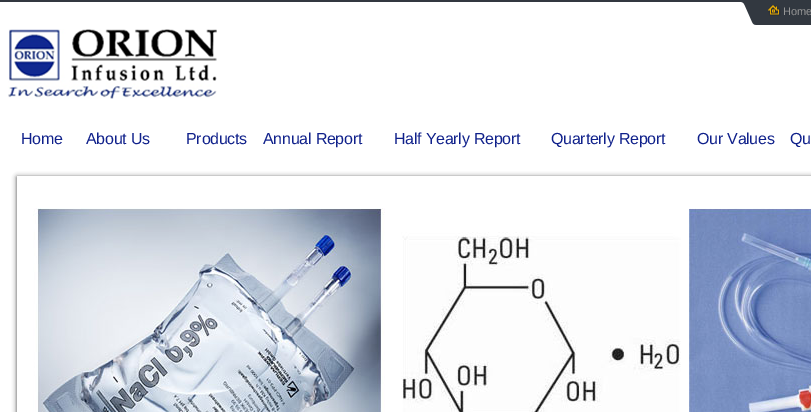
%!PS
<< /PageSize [811 412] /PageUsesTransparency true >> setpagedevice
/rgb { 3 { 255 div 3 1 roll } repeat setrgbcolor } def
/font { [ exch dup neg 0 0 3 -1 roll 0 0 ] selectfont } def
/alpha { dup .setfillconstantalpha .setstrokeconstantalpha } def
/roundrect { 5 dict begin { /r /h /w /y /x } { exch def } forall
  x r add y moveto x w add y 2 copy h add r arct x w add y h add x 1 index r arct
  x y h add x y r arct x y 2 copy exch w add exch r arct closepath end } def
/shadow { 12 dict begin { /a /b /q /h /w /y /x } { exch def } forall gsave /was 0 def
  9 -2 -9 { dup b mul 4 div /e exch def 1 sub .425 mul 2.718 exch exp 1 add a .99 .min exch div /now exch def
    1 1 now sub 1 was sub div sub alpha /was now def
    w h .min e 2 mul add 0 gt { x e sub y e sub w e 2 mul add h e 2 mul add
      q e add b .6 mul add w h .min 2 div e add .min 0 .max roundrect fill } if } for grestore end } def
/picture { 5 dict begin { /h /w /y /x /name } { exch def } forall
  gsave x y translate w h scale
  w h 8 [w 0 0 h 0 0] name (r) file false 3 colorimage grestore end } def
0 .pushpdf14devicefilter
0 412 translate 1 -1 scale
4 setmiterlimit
255 255 255 rgb
0 0 811 412 rectfill
50 56 64 rgb
0 0 811 2 rectfill
(img/1.rgb) 741 2 70 23 picture
(img/2.rgb) 768 5 13 11 picture
(img/3.rgb) 8 29 209 70 picture
gsave
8 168 moveto 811 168 lineto 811 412 lineto 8 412 lineto closepath 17 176 moveto 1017 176 lineto 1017 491 lineto 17 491 lineto closepath eoclip newpath
74 74 74 rgb
17 177 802 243 0 2.5 1 shadow
grestore
(img/4.rgb) 33 208 778 204 picture
/LiberationSans-Regular 11 font
150 150 150 rgb
783 15 moveto (Home) show
/LiberationSans-Regular 16 font
16 33 139 rgb
21 144 moveto -0.25 0 (Home) ashow
86 144 moveto -0.25 0 (About Us) ashow
186 144 moveto -0.25 0 (Products) ashow
263 144 moveto -0.25 0 (Annual Report) ashow
394 144 moveto -0.25 0 (Half Yearly Report) ashow
551 144 moveto -0.25 0 (Quarterly Report) ashow
697 144 moveto -0.25 0 (Our Values) ashow
790 144 moveto -0.25 0 (Qu) ashow
.poppdf14devicefilter showpage
